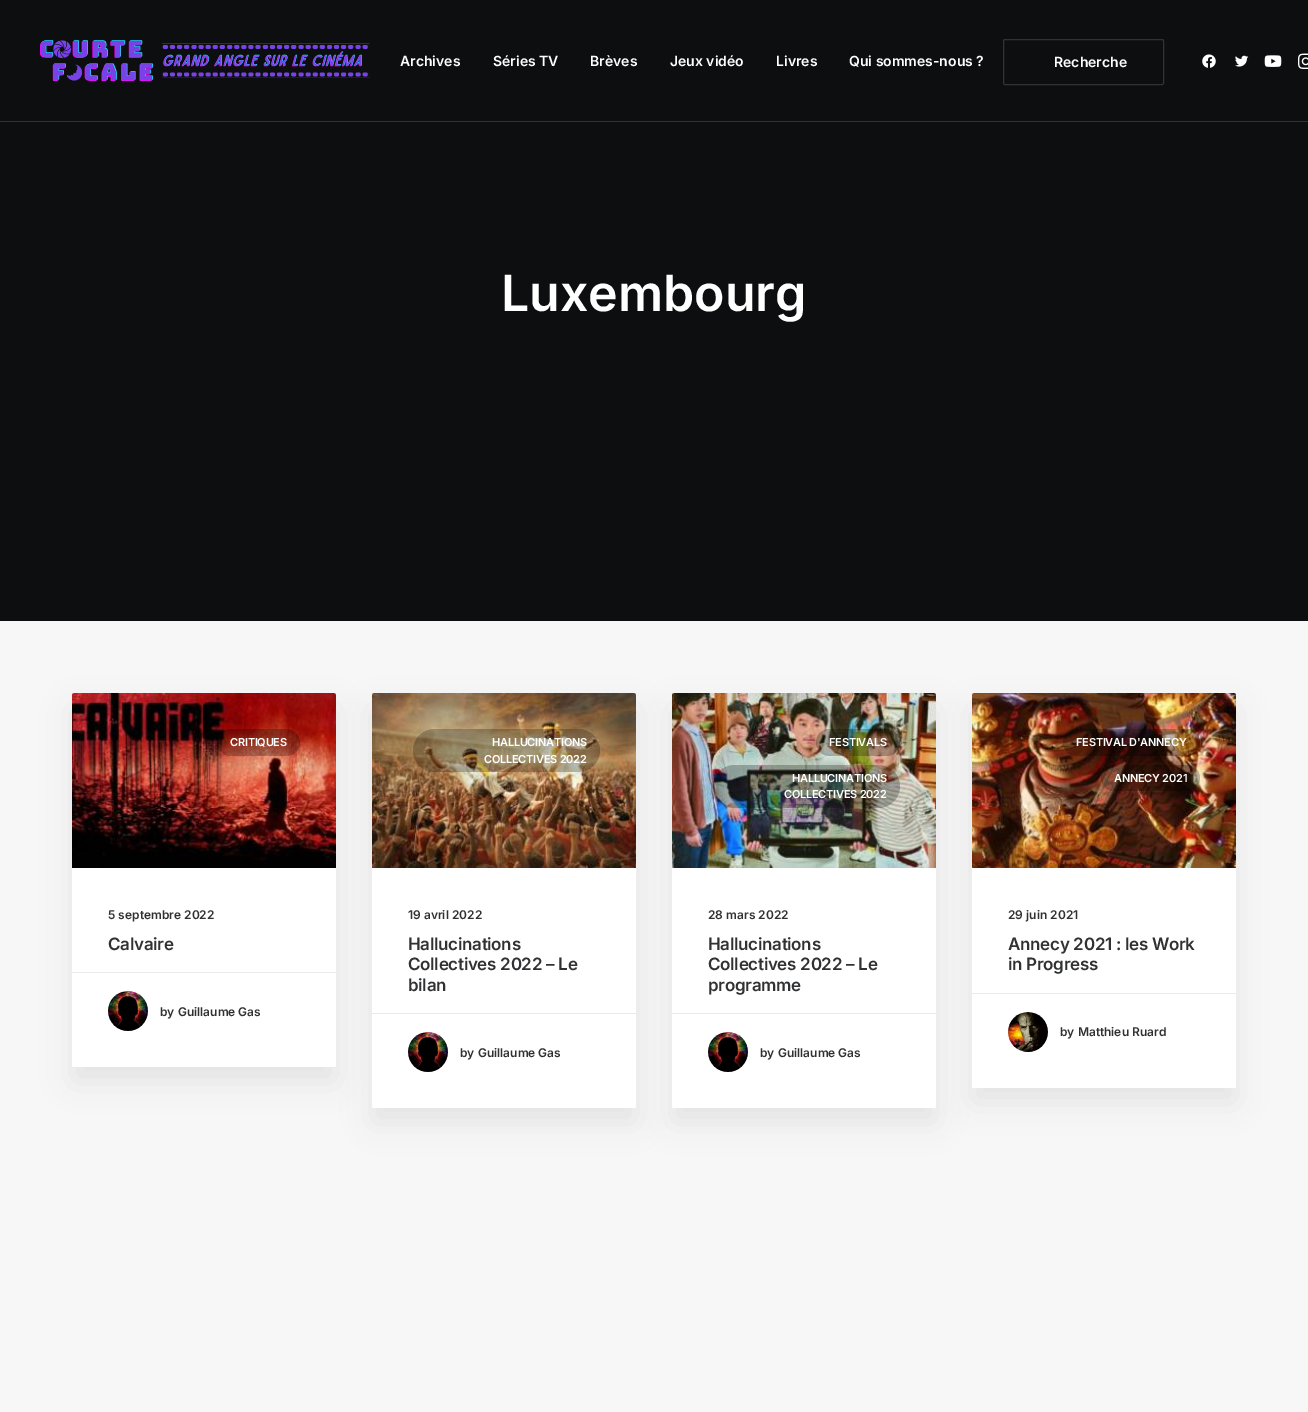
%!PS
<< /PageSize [1308 1412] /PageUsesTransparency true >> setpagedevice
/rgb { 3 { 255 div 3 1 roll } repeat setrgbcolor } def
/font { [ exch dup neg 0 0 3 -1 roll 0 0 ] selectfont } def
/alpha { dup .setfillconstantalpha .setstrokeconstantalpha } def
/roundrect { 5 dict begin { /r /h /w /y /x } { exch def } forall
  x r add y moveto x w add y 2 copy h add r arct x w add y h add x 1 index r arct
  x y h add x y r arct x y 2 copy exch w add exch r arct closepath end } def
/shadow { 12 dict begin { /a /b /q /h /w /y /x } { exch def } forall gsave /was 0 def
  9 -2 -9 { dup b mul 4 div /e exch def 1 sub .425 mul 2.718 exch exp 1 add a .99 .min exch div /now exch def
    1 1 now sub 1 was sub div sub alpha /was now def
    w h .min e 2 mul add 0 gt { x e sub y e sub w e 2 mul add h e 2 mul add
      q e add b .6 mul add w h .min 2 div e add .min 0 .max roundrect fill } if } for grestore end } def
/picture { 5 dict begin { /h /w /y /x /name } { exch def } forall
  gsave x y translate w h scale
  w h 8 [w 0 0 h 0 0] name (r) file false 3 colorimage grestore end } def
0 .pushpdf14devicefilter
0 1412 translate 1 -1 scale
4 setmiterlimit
13 14 16 rgb
0 0 1308 1412 rectfill
(img/1.rgb) 40 40 330 41 picture
49 50 52 rgb
1003.5 39.5 160 45 1.5 roundrect stroke
(img/2.rgb) 1202 54 14 14 picture
(img/3.rgb) 1235 55 14 12 picture
(img/4.rgb) 1264 55 18 12 picture
(img/5.rgb) 1298 53 10 16 picture
0 121 1308 1 rectfill
247 247 247 rgb
0 621 1308 791 rectfill
0 0 0 rgb
72 708 264 374 2 15 0.07 shadow
255 255 255 rgb
72 693 264 374 2 roundrect fill
(img/6.rgb) 72 693 264 175 picture
0.25 alpha
0 0 0 rgb
217 729 83 27 13.5 roundrect fill
1 alpha
234 234 234 rgb
72 972 264 1 rectfill
(img/7.rgb) 108 991 40 40 picture
0 0 0 rgb
372 708 264 415 2 15 0.07 shadow
255 255 255 rgb
372 693 264 415 2 roundrect fill
(img/8.rgb) 372 693 264 175 picture
0.25 alpha
0 0 0 rgb
413 729 187 43 21.5 roundrect fill
1 alpha
234 234 234 rgb
372 1013 264 1 rectfill
(img/7.rgb) 408 1032 40 40 picture
0 0 0 rgb
672 708 264 415 2 15 0.07 shadow
255 255 255 rgb
672 693 264 415 2 roundrect fill
(img/9.rgb) 672 693 264 175 picture
0.25 alpha
0 0 0 rgb
816 729 84 27 13.5 roundrect fill
713 765 187 43 21.5 roundrect fill
1 alpha
234 234 234 rgb
672 1013 264 1 rectfill
(img/7.rgb) 708 1032 40 40 picture
0 0 0 rgb
972 708 264 395 2 15 0.07 shadow
255 255 255 rgb
972 693 264 395 2 roundrect fill
(img/10.rgb) 972 693 264 175 picture
0.25 alpha
0 0 0 rgb
1063 729 137 27 13.5 roundrect fill
1101 765 99 26 13 roundrect fill
1 alpha
234 234 234 rgb
972 993 264 1 rectfill
(img/11.rgb) 1008 1012 40 40 picture
/Inter-SemiBold 14 font
255 255 255 rgb
[
  [(Archives) 400 66]
  [(Séries TV) 493 66]
  [(Brèves) 590 66]
  [(Jeux vidéo) 670 66]
  [(Livres) 776 66]
  [(Qui sommes-nous ?) 849 66]
  [(Recherche) 1054 67]
] { aload pop moveto show } forall
/Inter-SemiBold 50 font
501 311 moveto (Luxembourg) show
/Inter-SemiBold 11 font
230 746 moveto -0.25 0 (CRITIQUES) ashow
/Inter-SemiBold 12 font
48 49 51 rgb
108 919 moveto (5 septembre 2022) show
/Inter-SemiBold 17 font
108 950 moveto -0.3 0 (Calvaire) ashow
/Inter-SemiBold 12 font
160 1016 moveto (by Guillaume Gas) show
/Inter-SemiBold 11 font
255 255 255 rgb
492 746 moveto -0.25 0 (HALLUCINATIONS) ashow
484 763 moveto -0.25 0 (COLLECTIVES 2022) ashow
/Inter-SemiBold 12 font
48 49 51 rgb
408 919 moveto (19 avril 2022) show
/Inter-SemiBold 17 font
408 950 moveto -0.3 0 (Hallucinations) ashow
408 970 moveto -0.3 0 (Collectives 2022 – Le) ashow
408 991 moveto -0.3 0 (bilan) ashow
/Inter-SemiBold 12 font
460 1057 moveto (by Guillaume Gas) show
/Inter-SemiBold 11 font
255 255 255 rgb
829 746 moveto -0.25 0 (FESTIVALS) ashow
792 782 moveto -0.25 0 (HALLUCINATIONS) ashow
784 798 moveto -0.25 0 (COLLECTIVES 2022) ashow
/Inter-SemiBold 12 font
48 49 51 rgb
708 919 moveto (28 mars 2022) show
/Inter-SemiBold 17 font
708 950 moveto -0.3 0 (Hallucinations) ashow
708 970 moveto -0.3 0 (Collectives 2022 – Le) ashow
708 991 moveto -0.3 0 (programme) ashow
/Inter-SemiBold 12 font
760 1057 moveto (by Guillaume Gas) show
/Inter-SemiBold 11 font
255 255 255 rgb
1076 746 moveto -0.25 0 (FESTIVAL D'ANNECY) ashow
1114 782 moveto -0.25 0 (ANNECY 2021) ashow
/Inter-SemiBold 12 font
48 49 51 rgb
1008 919 moveto (29 juin 2021) show
/Inter-SemiBold 17 font
1008 950 moveto -0.3 0 (Annecy 2021 : les Work) ashow
1008 970 moveto -0.3 0 (in Progress) ashow
/Inter-SemiBold 12 font
1060 1036 moveto (by Matthieu Ruard) show
.poppdf14devicefilter showpage
